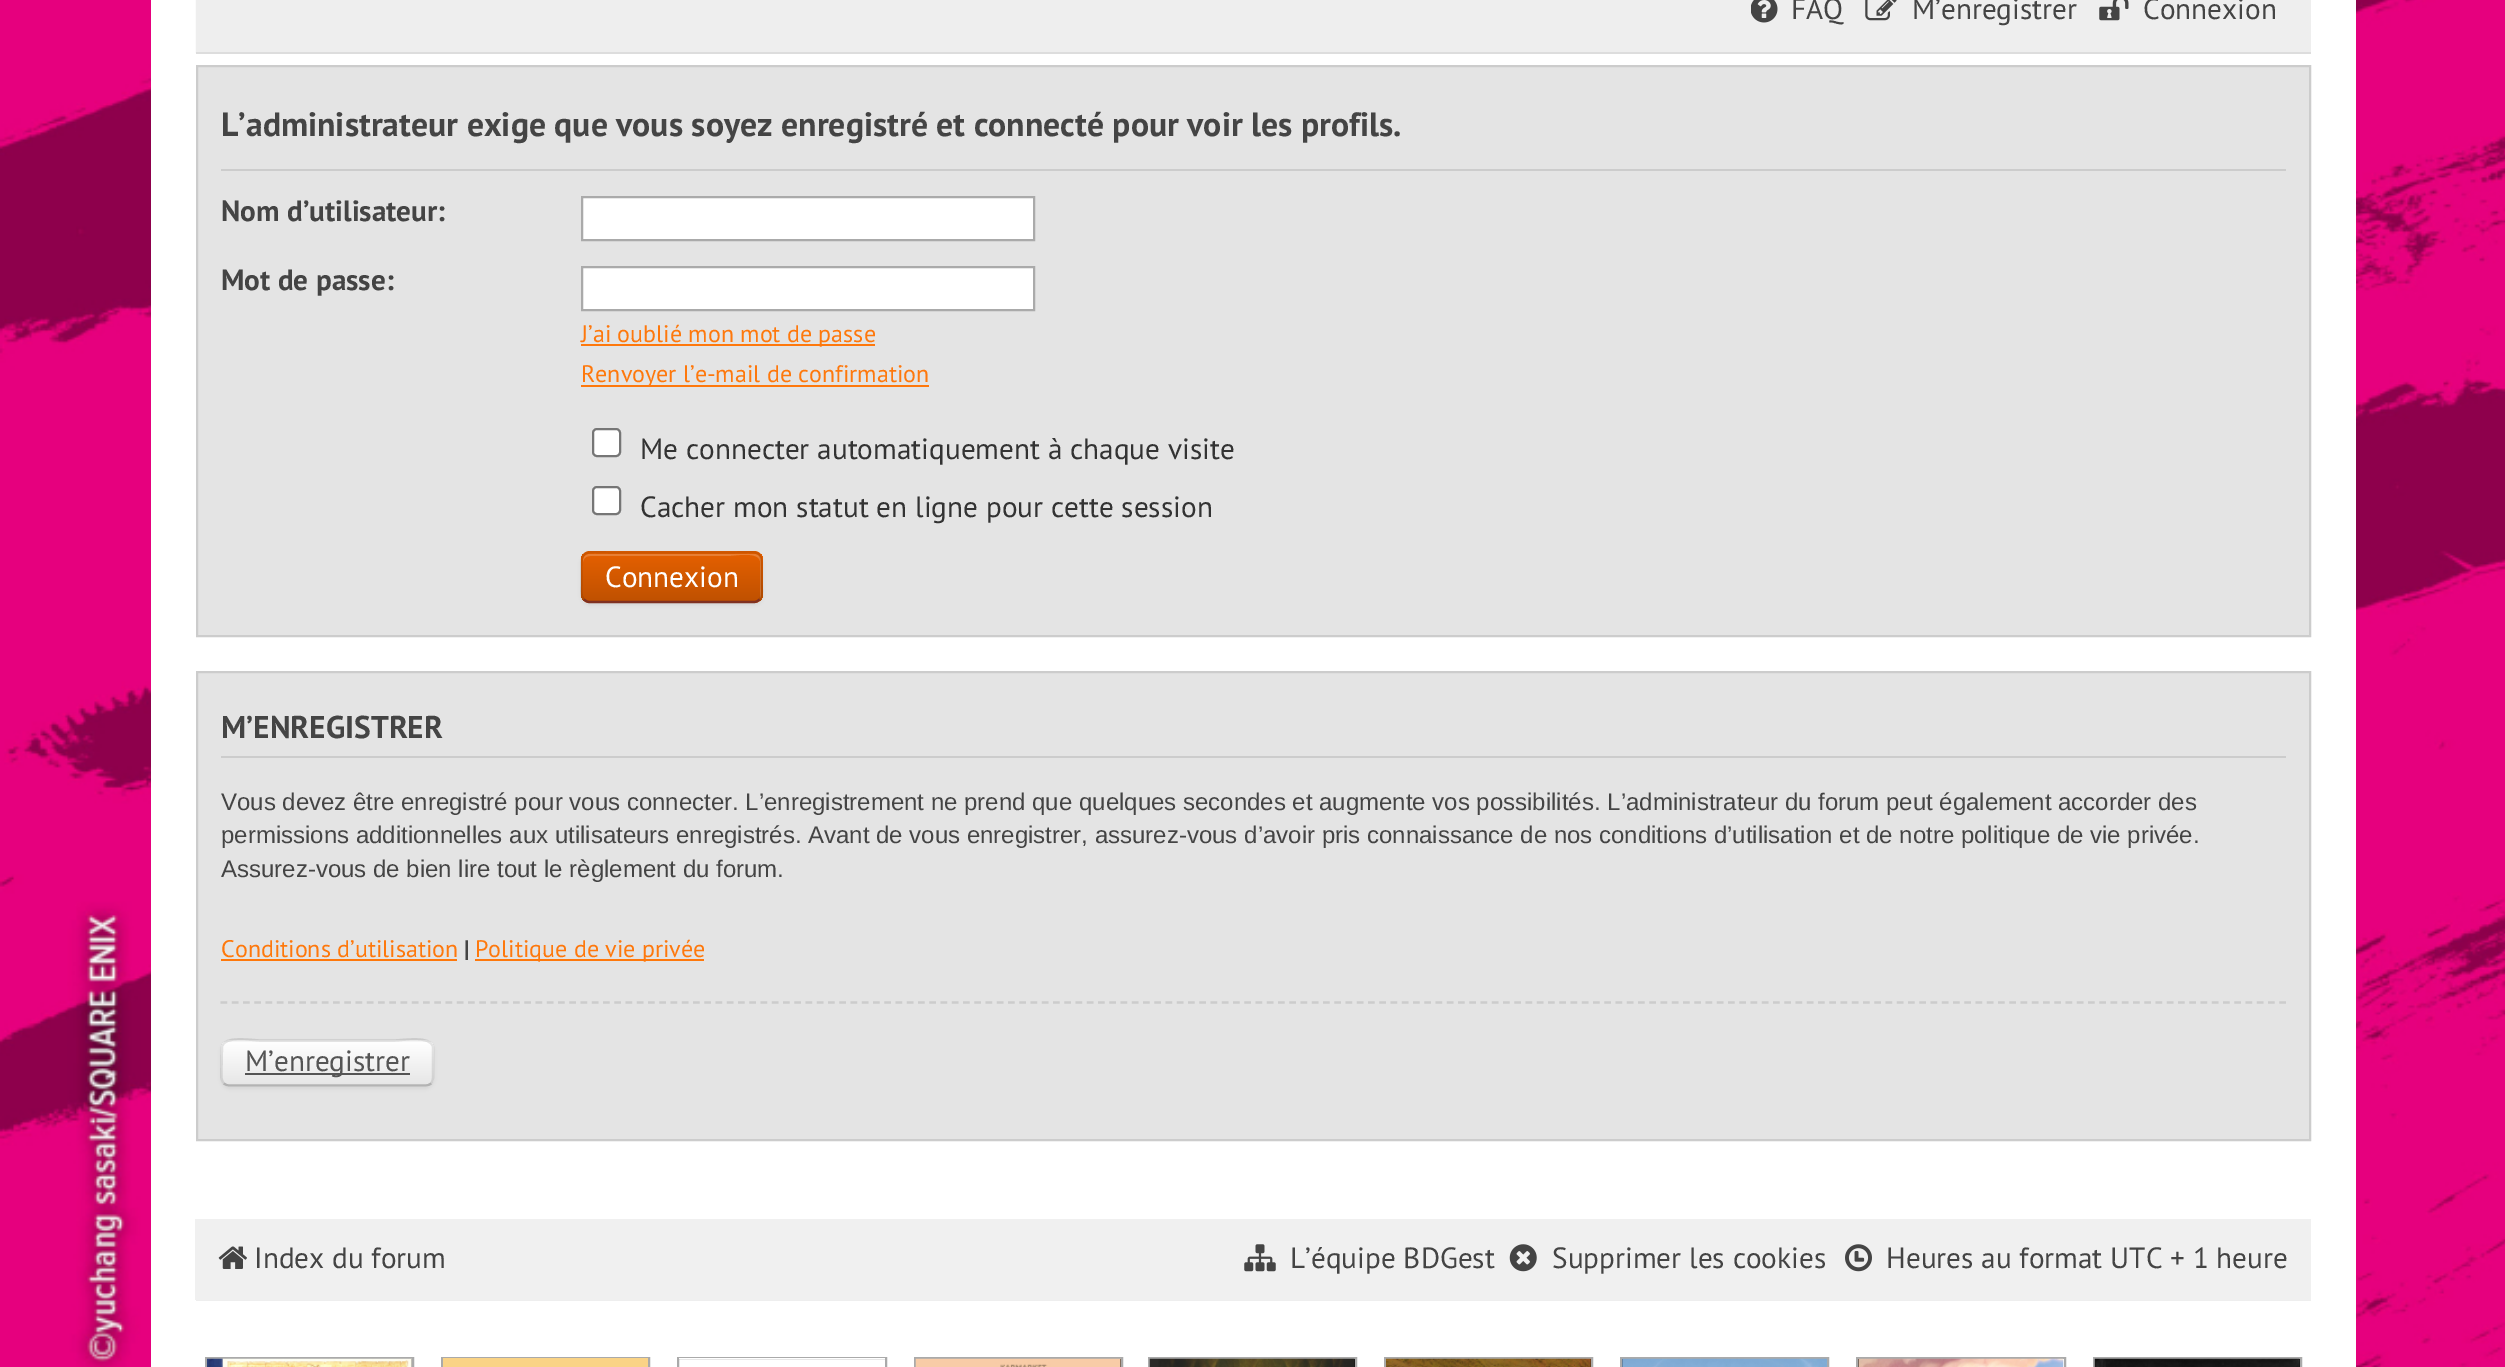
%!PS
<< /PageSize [2505 1367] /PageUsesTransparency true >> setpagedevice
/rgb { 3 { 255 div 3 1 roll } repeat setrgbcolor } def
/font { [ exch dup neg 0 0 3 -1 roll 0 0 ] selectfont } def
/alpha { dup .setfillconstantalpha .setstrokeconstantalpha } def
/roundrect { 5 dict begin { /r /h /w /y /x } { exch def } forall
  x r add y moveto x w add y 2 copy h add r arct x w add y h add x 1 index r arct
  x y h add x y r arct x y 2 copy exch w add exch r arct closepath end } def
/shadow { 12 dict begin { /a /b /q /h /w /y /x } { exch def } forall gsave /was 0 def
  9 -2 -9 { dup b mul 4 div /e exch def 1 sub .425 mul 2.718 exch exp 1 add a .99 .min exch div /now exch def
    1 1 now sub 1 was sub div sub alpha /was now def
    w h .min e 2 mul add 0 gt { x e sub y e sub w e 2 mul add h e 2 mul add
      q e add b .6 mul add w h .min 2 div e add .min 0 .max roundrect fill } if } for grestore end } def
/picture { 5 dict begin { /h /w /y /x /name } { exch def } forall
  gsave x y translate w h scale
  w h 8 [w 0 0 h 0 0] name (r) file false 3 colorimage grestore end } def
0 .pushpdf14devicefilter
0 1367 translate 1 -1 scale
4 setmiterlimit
255 255 255 rgb
0 0 2505 1367 rectfill
(img/1.rgb) 0 0 2505 1367 picture
[
  [151 0 2205 1367 255 255 255]
  [196 0 2115 52 238 238 238]
  [195 0 1 53 251 251 251]
  [196 52 2115 2 221 221 221]
] { aload pop rgb rectfill } forall
(img/2.rgb) 1751 0 27 23 picture
(img/3.rgb) 1865 0 32 21 picture
(img/4.rgb) 2099 0 30 21 picture
228 228 228 rgb
197 66 moveto 2310 66 lineto 2310 636 lineto 197 636 lineto closepath gsave fill grestore
204 204 204 rgb
2 setlinewidth
stroke
221 169 2065 2 rectfill
255 255 255 rgb
582 197 moveto 1034 197 lineto 1034 240 lineto 582 240 lineto closepath gsave fill grestore
170 170 170 rgb
stroke
255 255 255 rgb
582 267 moveto 1034 267 lineto 1034 310 lineto 582 310 lineto closepath gsave fill grestore
170 170 170 rgb
stroke
254 120 12 rgb
581 344 294 2 rectfill
581 385 348 2 rectfill
255 255 255 rgb
593 429 27 27 4 roundrect gsave fill grestore
118 118 118 rgb
stroke
255 255 255 rgb
593 487 27 27 4 roundrect gsave fill grestore
118 118 118 rgb
stroke
0 0 0 rgb
581 554 182 51 9 2 0.05 shadow
228 96 0 rgb
581 551 182 52 9 roundrect fill
gsave
581 551 182 52 9 roundrect clip newpath
gsave 581 554 moveto 763 554 lineto 763 601 lineto 581 601 lineto closepath clip newpath
<< /ShadingType 2 /ColorSpace /DeviceRGB /Coords [672 554 672 601] /Extend [true true] /Function << /FunctionType 2 /Domain [0 1] /C0 [0.894 0.376 0] /C1 [0.753 0.318 0] /N 1 >> >> shfill grestore
grestore
0.2 alpha
255 255 255 rgb
590 556 moveto 727 556 lineto 734 556 758 551 760 561 curveto 760 598 lineto 761 597 761 595 761 594 curveto 761 561 lineto 761 557 758 554 754 554 curveto 590 554 lineto 586 554 583 557 583 561 curveto 583 562 lineto 583 559 586 556 590 556 curveto closepath fill
1 alpha
128 49 33 rgb
2.2 setlinewidth
759.5 599.5 moveto 758 601 756 602 754 602 curveto 589.5 602 lineto 587.5 602 585.5 601 584 599.5 curveto stroke
0.1 alpha
0 0 0 rgb
584 599.5 moveto 580 595.5 581.5 587.5 581.5 583 curveto 581.5 546.5 577.5 552.5 617 552.5 curveto 726.5 552.5 lineto 765.5 552.5 761.5 546.5 761.5 583 curveto 761.5 587.5 763.5 595.5 759.5 599.5 curveto stroke
1 alpha
228 228 228 rgb
197 672 moveto 2310 672 lineto 2310 1140 lineto 197 1140 lineto closepath gsave fill grestore
204 204 204 rgb
2 setlinewidth
stroke
[
  [221 756 2065 2 204 204 204]
  [221 959 236 2 254 120 12]
  [475 959 229 2 254 120 12]
] { aload pop rgb rectfill } forall
204 204 204 rgb
2.2 setlinewidth
[6.75 4.5] 0 setdash
220.5 1002.5 moveto 2286 1002.5 lineto stroke
0 0 0 rgb
221 1042 213 47 9 2 0.05 shadow
245 245 245 rgb
221 1040 213 47 9 roundrect fill
gsave
221 1040 213 47 9 roundrect clip newpath
gsave 221 1042 moveto 434 1042 lineto 434 1085 lineto 221 1085 lineto closepath clip newpath
<< /ShadingType 2 /ColorSpace /DeviceRGB /Coords [327 1042 327 1085] /Extend [true true] /Function << /FunctionType 2 /Domain [0 1] /C0 [1 1 1] /C1 [0.902 0.902 0.902] /N 1 >> >> shfill grestore
grestore
179 179 179 rgb
[] 0 setdash
431 1083.5 moveto 429.5 1085 427.5 1085.5 425 1085.5 curveto 229.5 1085.5 lineto 227.5 1085.5 225.5 1085 224 1083.5 curveto stroke
0.1 alpha
0 0 0 rgb
224 1083.5 moveto 221 1080.5 221.5 1076.5 221.5 1073 curveto 222 1047 lineto 224 1035 251.5 1040.5 262 1040.5 curveto 392.5 1040.5 lineto 403.5 1040.5 430.5 1035 433 1047 curveto 433 1073 lineto 433 1076.5 433.5 1080.5 431 1083.5 curveto stroke
1 alpha
[
  [245 1073 165 2 85 85 85]
  [196 1300 2115 1 238 238 238]
  [195 1219 2116 81 240 240 240]
] { aload pop rgb rectfill } forall
(img/5.rgb) 218 1246 29 23 picture
(img/6.rgb) 1244 1244 32 28 picture
(img/7.rgb) 1509 1244 28 28 picture
(img/8.rgb) 1845 1244 27 28 picture
170 170 170 rgb
2 setlinewidth
206 1358 207 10 rectstroke
(img/9.rgb) 207 1358 205 9 picture
442 1358 207 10 rectstroke
250 211 134 rgb
443 1358 205 9 rectfill
170 170 170 rgb
678 1358 208 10 rectstroke
255 255 255 rgb
679 1358 206 1 rectfill
17 17 17 rgb
1120 1359 1 8 rectfill
170 170 170 rgb
915 1358 207 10 rectstroke
(img/10.rgb) 915 1358 206 9 picture
17 17 17 rgb
1354 1359 1 8 rectfill
170 170 170 rgb
1149 1358 207 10 rectstroke
(img/11.rgb) 1149 1358 206 9 picture
1385 1358 207 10 rectstroke
(img/12.rgb) 1386 1358 205 9 picture
1621 1358 207 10 rectstroke
(img/13.rgb) 1622 1358 205 9 picture
17 17 17 rgb
1858 1359 1 8 rectfill
170 170 170 rgb
1857 1358 208 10 rectstroke
(img/14.rgb) 1858 1358 206 9 picture
17 17 17 rgb
2299 1359 1 8 rectfill
170 170 170 rgb
2094 1358 207 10 rectstroke
(img/15.rgb) 2094 1358 206 9 picture
/PTSans-Regular 29.25 font
68 68 68 rgb
[
  [(FAQ) 1791 19]
  [(M’enregistrer) 1912 19]
  [(Connexion) 2143 19]
] { aload pop moveto show } forall
/PTSans-Bold 33.75 font
221 136 moveto (L’administrateur exige que vous soyez enregistré et connecté pour voir les profils.) show
/PTSans-Bold 29.25 font
221 221 moveto (Nom d’utilisateur:) show
221 290 moveto (Mot de passe:) show
/PTSans-Regular 24 font
254 120 12 rgb
581 342 moveto (J’ai oublié mon mot de passe) show
581 382 moveto (Renvoyer l’e-mail de confirmation) show
/PTSans-Regular 29.25 font
51 51 51 rgb
640 459 moveto (Me connecter automatiquement à chaque visite) show
640 517 moveto (Cacher mon statut en ligne pour cette session) show
255 255 255 rgb
605 587 moveto (Connexion) show
/PTSans-Bold 31.5 font
68 68 68 rgb
221 738 moveto (M’ENREGISTRER) show
/LiberationSans-Regular 24 font
[
  [(Vous devez être enregistré pour vous connecter. L’enregistrement ne prend que quelques secondes et augmente vos possibilités. L’administrateur du forum peut également accorder des) 221 810]
  [(permissions additionnelles aux utilisateurs enregistrés. Avant de vous enregistrer, assurez-vous d’avoir pris connaissance de nos conditions d’utilisation et de notre politique de vie privée.) 221 843]
  [(Assurez-vous de bien lire tout le règlement du forum.) 221 877]
] { aload pop moveto show } forall
/PTSans-Regular 24 font
254 120 12 rgb
221 957 moveto (Conditions d’utilisation) show
/PTSans-Bold 24 font
68 68 68 rgb
464 957 moveto (|) show
/PTSans-Regular 24 font
254 120 12 rgb
475 957 moveto (Politique de vie privée) show
/PTSans-Regular 29.25 font
85 85 85 rgb
245 1071 moveto (M’enregistrer) show
68 68 68 rgb
[
  [(Index du forum) 254 1268]
  [(L’équipe BDGest) 1290 1268]
  [(Supprimer les cookies) 1552 1268]
  [(Heures au format UTC + 1 heure) 1886 1268]
] { aload pop moveto show } forall
.poppdf14devicefilter showpage
